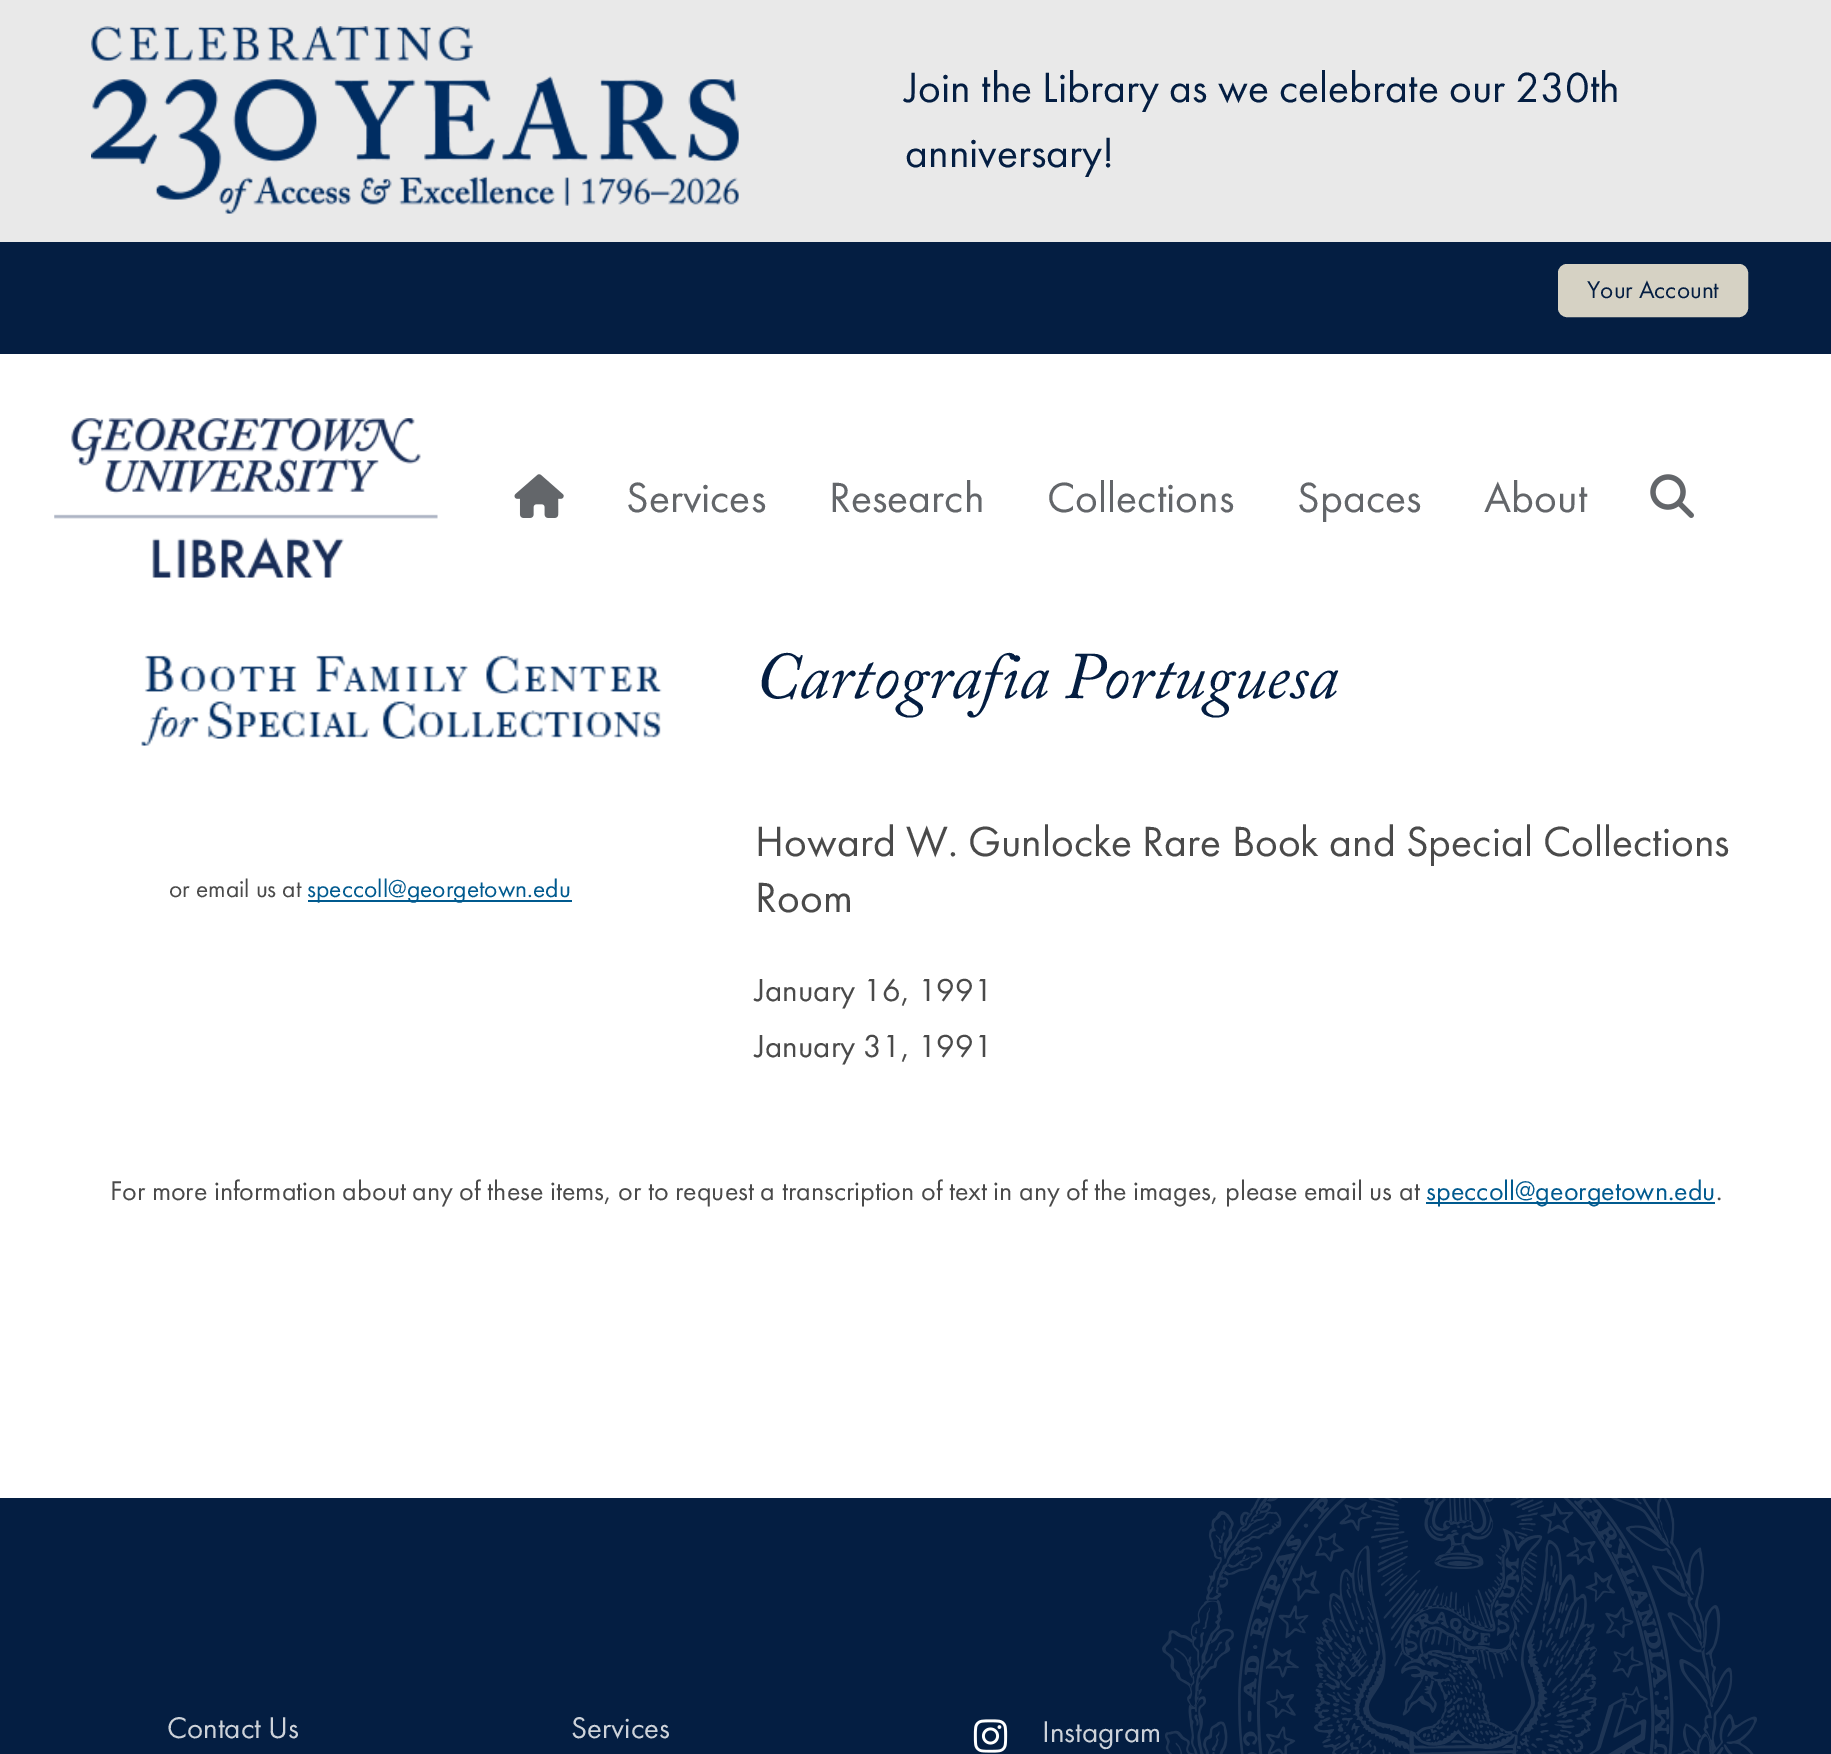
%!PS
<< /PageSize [1831 1754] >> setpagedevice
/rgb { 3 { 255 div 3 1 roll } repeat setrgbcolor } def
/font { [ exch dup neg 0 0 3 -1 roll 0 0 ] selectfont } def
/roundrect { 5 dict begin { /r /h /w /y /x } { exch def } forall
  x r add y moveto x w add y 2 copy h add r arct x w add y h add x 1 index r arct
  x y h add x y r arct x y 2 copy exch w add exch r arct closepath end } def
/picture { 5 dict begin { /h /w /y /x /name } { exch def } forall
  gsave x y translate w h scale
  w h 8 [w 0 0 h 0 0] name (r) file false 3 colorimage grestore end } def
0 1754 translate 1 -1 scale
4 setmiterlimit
255 255 255 rgb
0 0 1831 1754 rectfill
4 30 66 rgb
0 242 1831 112 rectfill
233 233 233 rgb
0 0 1831 242 rectfill
(img/1.rgb) 91 26 648 188 picture
214 210 196 rgb
1559 265 188 51 8 roundrect gsave fill grestore
2 setlinewidth
stroke
(img/2.rgb) 54 418 384 160 picture
(img/3.rgb) 514 474 50 44 picture
(img/4.rgb) 1650 474 44 44 picture
(img/5.rgb) 141 655 521 91 picture
[
  [308 900 264 2 0 90 143]
  [1426 1202 289 2 0 90 143]
  [0 1498 1831 256 4 30 66]
] { aload pop rgb rectfill } forall
(img/6.rgb) 1162 1498 595 256 picture
(img/7.rgb) 973 1719 35 34 picture
/FuturaPT-Regular 43.75 font
905 102 moveto (Join the Library as we celebrate our 230th) show
905 167 moveto (anniversary!) show
/FuturaPT-Regular 25.25 font
1587 298 moveto (Your Account) show
/FuturaPT-Regular 43.75 font
99 102 106 rgb
[
  [(Services) 626 512]
  [(Research) 829 512]
  [(Collections) 1047 512]
  [(Spaces) 1297 512]
  [(About) 1484 512]
] { aload pop moveto show } forall
/FuturaPT-Regular 25.5 font
74 74 74 rgb
169 897 moveto (or email us at) show
0 90 143 rgb
307 897 moveto (speccoll@georgetown.edu) show
/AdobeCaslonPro-Italic 66 font
4 30 66 rgb
755 698 moveto (Cartografia Portuguesa) show
/FuturaPT-Regular 43.7 font
74 74 74 rgb
755 856 moveto (Howard W. Gunlocke Rare Book and Special Collections) show
755 912 moveto (Room) show
/FuturaPT-Regular 33 font
755 1001 moveto (January 16, 1991) show
755 1057 moveto (January 31, 1991) show
/FuturaPT-Regular 28 font
110 1200 moveto (For more information about any of these items, or to request a transcription of text in any of the images, please email us at) show
0 90 143 rgb
1426 1200 moveto (speccoll@georgetown.edu) show
74 74 74 rgb
1716 1200 moveto (.) show
/FuturaPT-Regular 31 font
205 210 217 rgb
[
  [(Contact Us) 167 1738]
  [(Services) 571 1738]
  [(Instagram) 1042 1742]
] { aload pop moveto show } forall
showpage
